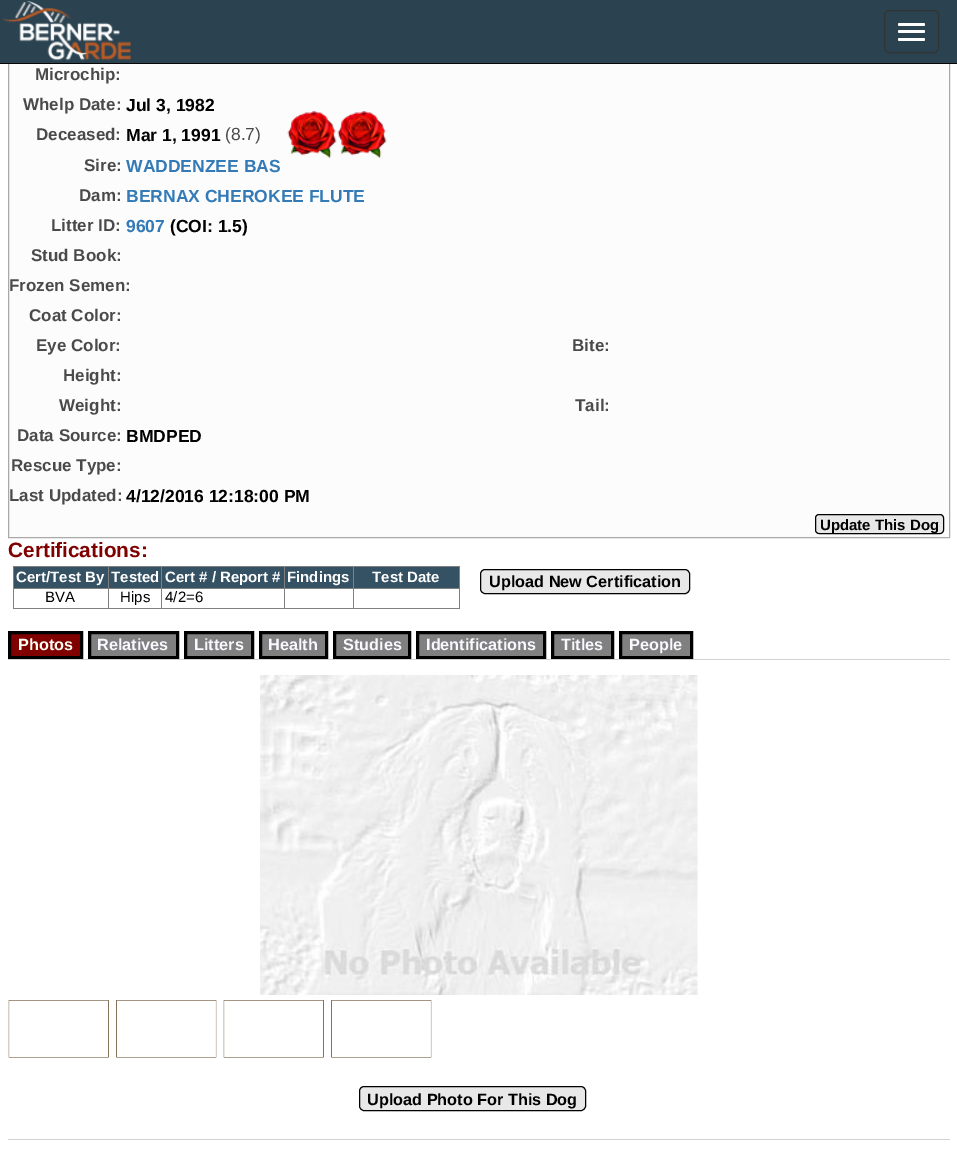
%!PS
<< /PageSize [957 1159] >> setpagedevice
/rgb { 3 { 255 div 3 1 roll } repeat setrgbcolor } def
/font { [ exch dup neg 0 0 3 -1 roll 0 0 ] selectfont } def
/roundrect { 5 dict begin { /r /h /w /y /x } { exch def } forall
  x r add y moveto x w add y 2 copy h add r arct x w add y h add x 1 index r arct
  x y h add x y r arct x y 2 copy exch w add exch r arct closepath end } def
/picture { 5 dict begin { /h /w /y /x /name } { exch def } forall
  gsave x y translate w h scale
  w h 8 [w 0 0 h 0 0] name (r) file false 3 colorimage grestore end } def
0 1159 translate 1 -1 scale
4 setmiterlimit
255 255 255 rgb
0 0 957 1159 rectfill
252 252 252 rgb
9 64 940 473 rectfill
169 169 169 rgb
8.5 -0.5 941 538 rectstroke
43 67 81 rgb
0 0 957 63 rectfill
8 8 8 rgb
0 63 957 1 rectfill
(img/1.rgb) 2 1 129 60 picture
51 51 51 rgb
884.5 10.5 54 42 4.5 roundrect stroke
255 255 255 rgb
898 23 27 3 1.5 roundrect fill
898 30 27 3 1.5 roundrect fill
898 38 27 3 1.5 roundrect fill
(img/2.rgb) 287 111 50 47 picture
(img/2.rgb) 337 111 50 47 picture
232 232 232 rgb
815.5 514.5 128 19 3.5 roundrect gsave fill grestore
0 0 0 rgb
stroke
[
  [13 566 447 1 128 128 128]
  [459 566 1 43 128 128 128]
  [13 608 447 1 128 128 128]
  [13 566 1 43 128 128 128]
  [14 567 445 21 53 82 100]
  [13 588 447 1 128 128 128]
  [108 566 1 43 128 128 128]
  [161 566 1 43 128 128 128]
  [284 566 1 43 128 128 128]
  [353 566 1 43 128 128 128]
] { aload pop rgb rectfill } forall
232 232 232 rgb
480.5 569.5 209 24 4.5 roundrect gsave fill grestore
0 0 0 rgb
stroke
128 0 0 rgb
9.5 632.5 moveto 81.5 632.5 lineto 81.5 657.5 lineto 9.5 657.5 lineto closepath gsave fill grestore
0 0 0 rgb
3 setlinewidth
stroke
128 128 128 rgb
89.5 632.5 moveto 177.5 632.5 lineto 177.5 657.5 lineto 89.5 657.5 lineto closepath gsave fill grestore
0 0 0 rgb
stroke
128 128 128 rgb
185.5 632.5 moveto 252.5 632.5 lineto 252.5 657.5 lineto 185.5 657.5 lineto closepath gsave fill grestore
0 0 0 rgb
stroke
128 128 128 rgb
260.5 632.5 moveto 326.5 632.5 lineto 326.5 657.5 lineto 260.5 657.5 lineto closepath gsave fill grestore
0 0 0 rgb
stroke
128 128 128 rgb
334.5 632.5 moveto 409.5 632.5 lineto 409.5 657.5 lineto 334.5 657.5 lineto closepath gsave fill grestore
0 0 0 rgb
stroke
128 128 128 rgb
417.5 632.5 moveto 544.5 632.5 lineto 544.5 657.5 lineto 417.5 657.5 lineto closepath gsave fill grestore
0 0 0 rgb
stroke
128 128 128 rgb
552.5 632.5 moveto 612.5 632.5 lineto 612.5 657.5 lineto 552.5 657.5 lineto closepath gsave fill grestore
0 0 0 rgb
stroke
128 128 128 rgb
620.5 632.5 moveto 691.5 632.5 lineto 691.5 657.5 lineto 620.5 657.5 lineto closepath gsave fill grestore
0 0 0 rgb
stroke
211 211 211 rgb
8 659 942 1 rectfill
(img/3.rgb) 260 675 438 320 picture
(img/4.rgb) 8 1000 101 58 picture
(img/5.rgb) 116 1000 101 58 picture
(img/4.rgb) 223 1000 101 58 picture
(img/5.rgb) 331 1000 101 58 picture
232 232 232 rgb
359.5 1086.5 226 24 4.5 roundrect gsave fill grestore
0 0 0 rgb
1 setlinewidth
stroke
211 211 211 rgb
8 1139 942 1 rectfill
/LiberationSans-Bold 17 font
74 74 74 rgb
35 80 moveto (Microchip:) show
23 110 moveto (Whelp Date:) show
/LiberationSans-Bold 17.5 font
0 0 0 rgb
126 111 moveto (Jul 3, 1982) show
/LiberationSans-Bold 17 font
74 74 74 rgb
36 140 moveto (Deceased:) show
/LiberationSans-Bold 17.5 font
0 0 0 rgb
126 141 moveto (Mar 1, 1991) show
/LiberationSans-Regular 17.5 font
74 74 74 rgb
225 140 moveto (\(8.7\)) show
/LiberationSans-Bold 17 font
84 171 moveto (Sire:) show
/LiberationSans-Bold 17.5 font
51 122 183 rgb
126 172 moveto (WADDENZEE BAS) show
/LiberationSans-Bold 17 font
74 74 74 rgb
79 201 moveto (Dam:) show
/LiberationSans-Bold 17.5 font
51 122 183 rgb
126 202 moveto (BERNAX CHEROKEE FLUTE) show
/LiberationSans-Bold 17 font
74 74 74 rgb
51 231 moveto (Litter ID:) show
/LiberationSans-Bold 17.5 font
51 122 183 rgb
126 232 moveto (9607) show
0 0 0 rgb
170 232 moveto (\(COI: 1.5\)) show
/LiberationSans-Bold 17 font
74 74 74 rgb
[
  [(Stud Book:) 31 261]
  [(Frozen Semen:) 9 291]
  [(Coat Color:) 29 321]
  [(Eye Color:) 36 351]
  [(Bite:) 572 351]
  [(Height:) 63 381]
  [(Weight:) 59 411]
  [(Tail:) 575 411]
  [(Data Source:) 17 441]
] { aload pop moveto show } forall
/LiberationSans-Bold 17.5 font
0 0 0 rgb
126 442 moveto (BMDPED) show
/LiberationSans-Bold 17 font
74 74 74 rgb
11 471 moveto (Rescue Type:) show
9 501 moveto (Last Updated:) show
/LiberationSans-Bold 17.5 font
0 0 0 rgb
126 502 moveto (4/12/2016 12:18:00 PM) show
gsave
816 515 127 18 2.5 roundrect clip newpath
/LiberationSans-Bold 15 font
820 530 moveto (Update This Dog) show
grestore
/LiberationSans-Bold 20.75 font
128 0 0 rgb
8 557 moveto (Certifications:) show
/LiberationSans-Bold 15 font
255 255 255 rgb
[
  [(Cert/Test By) 16 582]
  [(Tested) 111 582]
  [(Cert # / Report #) 165 582]
  [(Findings) 287 582]
  [(Test Date) 372 582]
] { aload pop moveto show } forall
/LiberationSans-Regular 15 font
0 0 0 rgb
[
  [(BVA) 45 602]
  [(Hips) 120 602]
  [(4/2=6) 165 602]
] { aload pop moveto show } forall
/LiberationSans-Bold 16.25 font
489 587 moveto (Upload New Certification) show
254 254 242 rgb
18 650 moveto (Photos) show
248 248 255 rgb
[
  [(Relatives) 97 650]
  [(Litters) 194 650]
  [(Health) 268 650]
  [(Studies) 343 650]
  [(Identifications) 426 650]
  [(Titles) 561 650]
  [(People) 629 650]
] { aload pop moveto show } forall
0 0 0 rgb
367 1105 moveto (Upload Photo For This Dog) show
showpage
